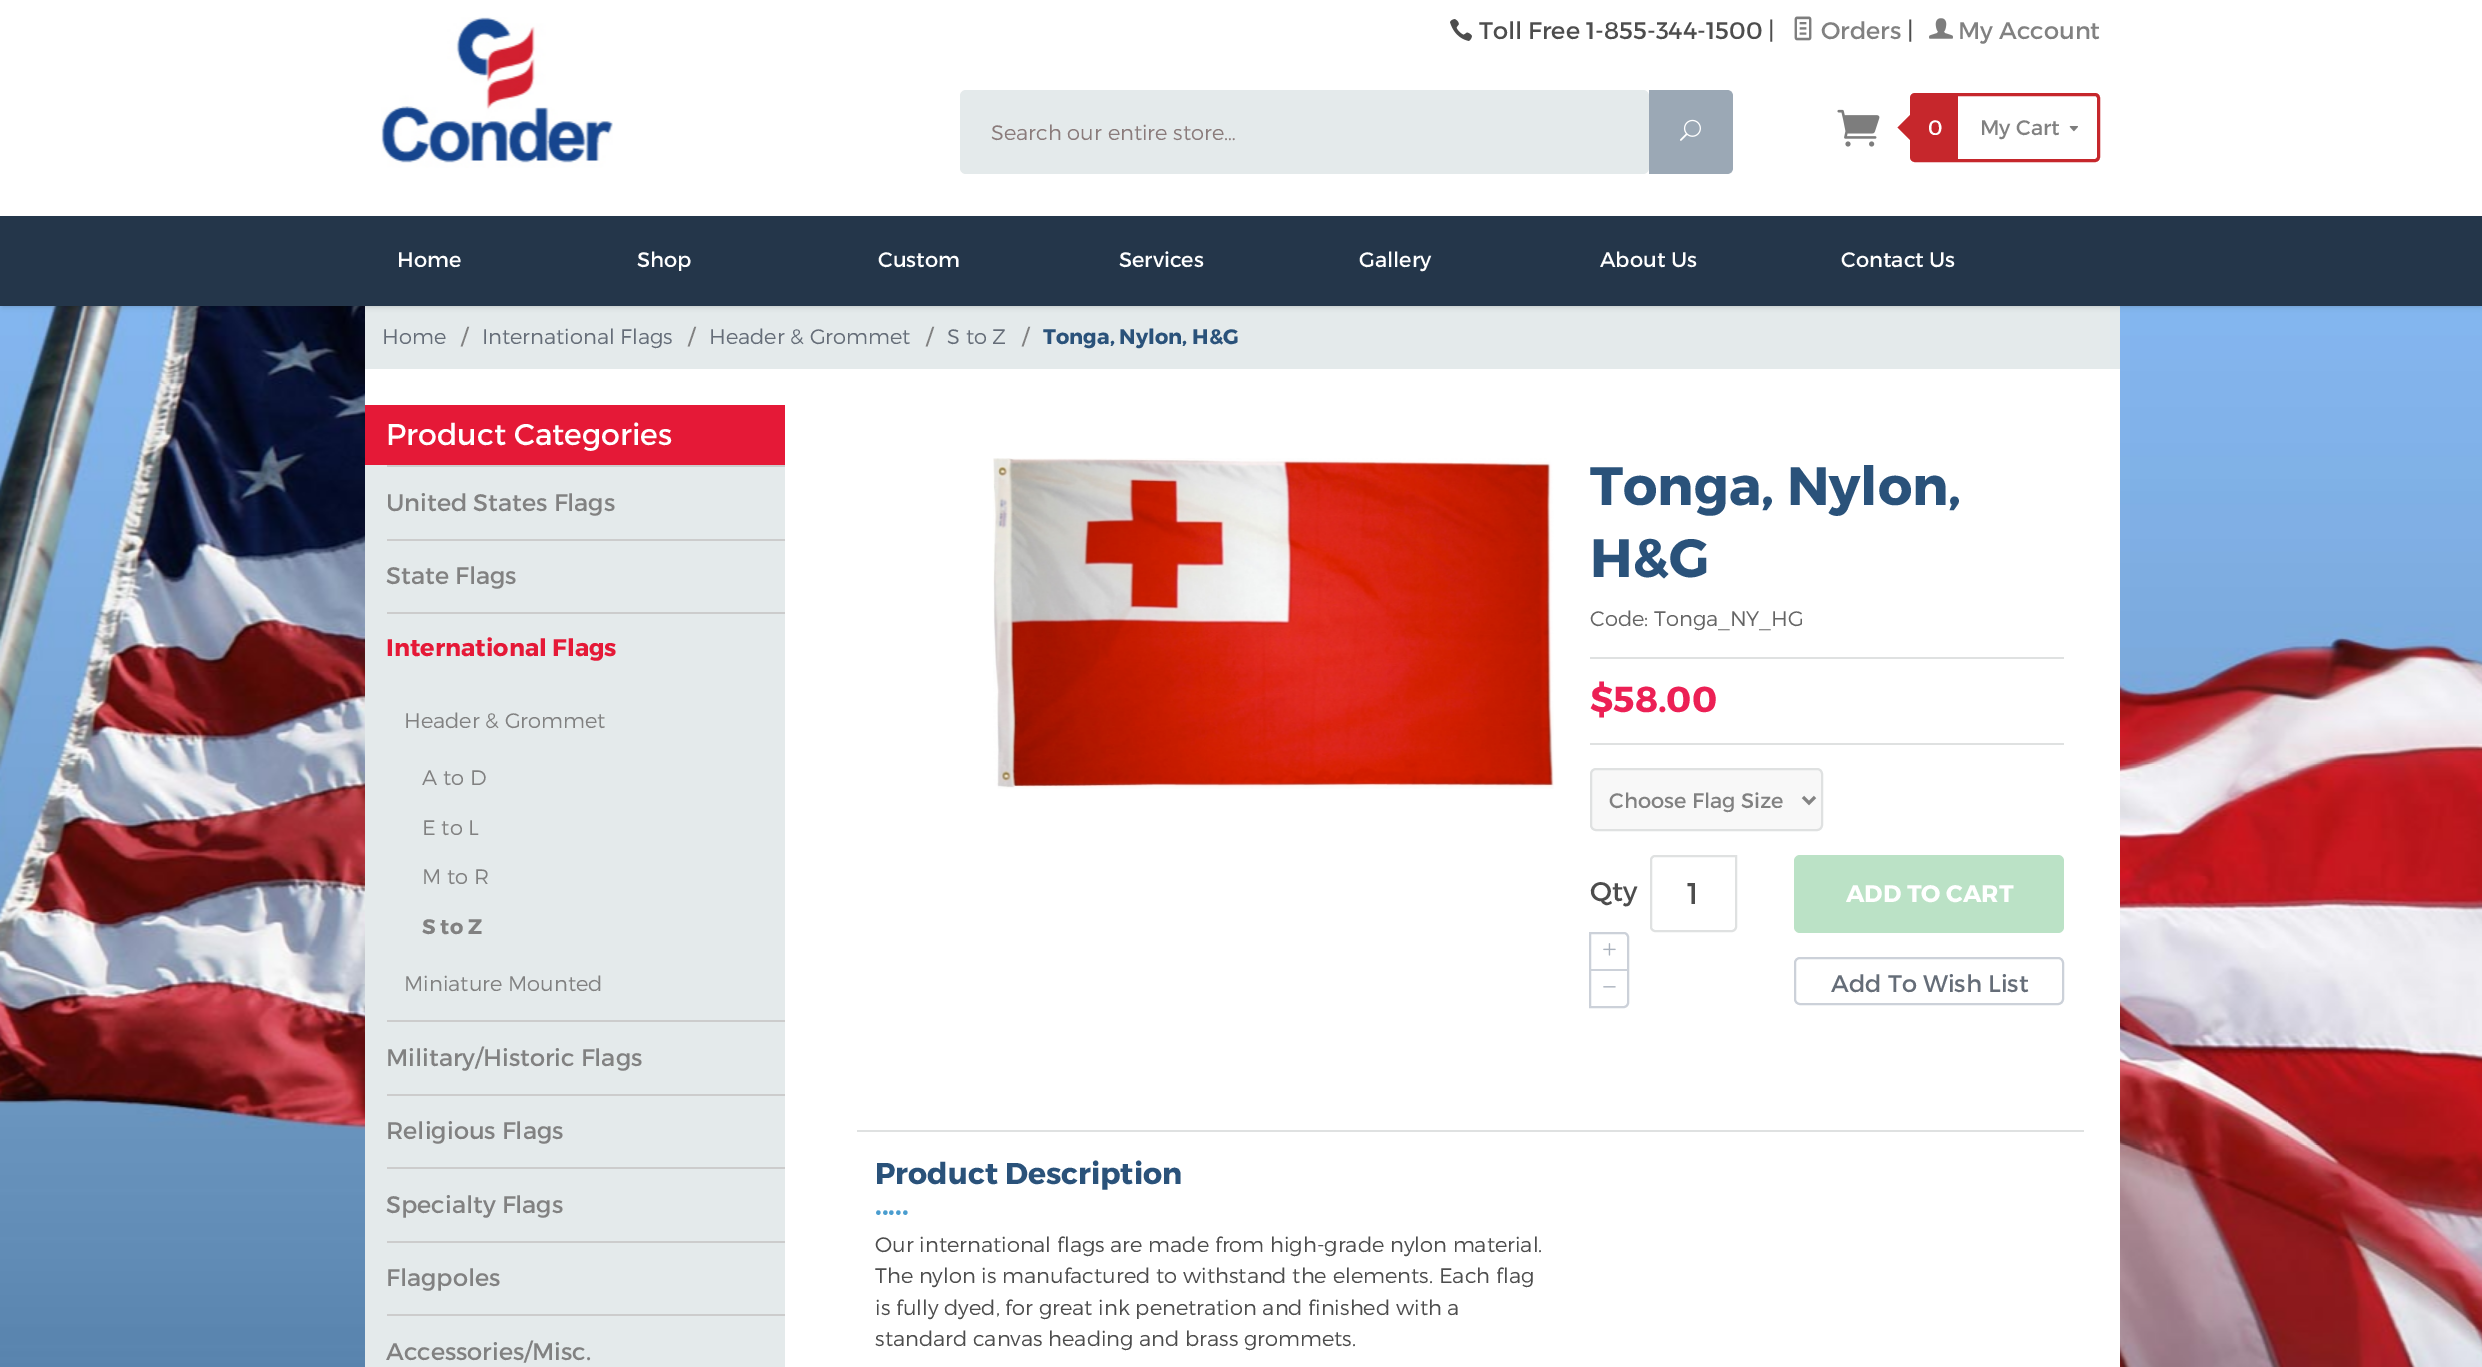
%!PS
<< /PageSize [2482 1367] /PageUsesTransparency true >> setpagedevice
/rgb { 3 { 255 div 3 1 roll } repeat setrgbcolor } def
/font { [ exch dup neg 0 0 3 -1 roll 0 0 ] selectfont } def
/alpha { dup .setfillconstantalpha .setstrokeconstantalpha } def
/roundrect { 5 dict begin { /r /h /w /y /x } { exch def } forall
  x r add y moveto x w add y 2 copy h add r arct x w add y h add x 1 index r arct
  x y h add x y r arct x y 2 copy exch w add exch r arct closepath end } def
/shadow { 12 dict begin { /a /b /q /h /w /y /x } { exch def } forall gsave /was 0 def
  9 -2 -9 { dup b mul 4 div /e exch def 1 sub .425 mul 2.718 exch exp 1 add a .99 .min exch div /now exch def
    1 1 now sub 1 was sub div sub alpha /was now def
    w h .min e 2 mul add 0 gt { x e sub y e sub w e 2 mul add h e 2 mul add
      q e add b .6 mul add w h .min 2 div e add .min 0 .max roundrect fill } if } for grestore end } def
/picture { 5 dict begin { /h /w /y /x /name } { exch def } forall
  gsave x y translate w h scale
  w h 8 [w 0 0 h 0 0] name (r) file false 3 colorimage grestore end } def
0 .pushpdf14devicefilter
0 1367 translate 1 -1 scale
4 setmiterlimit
255 255 255 rgb
0 0 2482 1367 rectfill
(img/1.rgb) 0 306 2482 1061 picture
(img/2.rgb) 381 17 232 151 picture
(img/3.rgb) 1450 19 22 22 picture
(img/4.rgb) 1794 16 18 25 picture
(img/5.rgb) 1929 18 24 21 picture
228 234 235 rgb
960 90 689 84 6 roundrect fill
155 168 181 rgb
1649 90 moveto 1727 90 lineto 1730.5 90 1733 92.5 1733 96 curveto 1733 168 lineto 1733 171.5 1730.5 174 1727 174 curveto 1649 174 lineto closepath fill
(img/6.rgb) 1680 119 21 22 picture
(img/7.rgb) 1837 109 43 38 picture
198 39 44 rgb
3 setlinewidth
1911.5 94.5 187 66 3.5 roundrect stroke
1912.5 112.5 moveto 1912.5 142.5 lineto 1897.5 127.5 lineto closepath fill
1913 96 45 63 rectfill
(img/8.rgb) 2069 126 9 6 picture
228 234 235 rgb
365 306 1755 63 rectfill
0 0 0 rgb
3 222 2477 84 0 3 0.2 shadow
[
  [0 216 2482 90 36 54 74]
  [365 369 1755 998 255 255 255]
  [365 465 420 902 228 234 235]
  [365 405 420 60 229 25 55]
  [387 465 398 2 204 204 204]
  [387 539 398 2 204 204 204]
  [387 612 398 2 204 204 204]
  [387 1020 398 2 204 204 204]
  [387 1094 398 2 204 204 204]
  [387 1167 398 2 204 204 204]
  [387 1241 398 2 204 204 204]
  [387 1314 398 2 204 204 204]
] { aload pop rgb rectfill } forall
(img/9.rgb) 993 458 561 331 picture
223 225 225 rgb
1590 657 474 2 rectfill
1590 743 474 2 rectfill
248 248 248 rgb
1591 769 231 61 5 roundrect gsave fill grestore
223 225 225 rgb
2 setlinewidth
stroke
131 131 131 rgb
3 setlinewidth
1803 797 moveto 1809 803 lineto 1815 797 lineto stroke
223 225 225 rgb
2 setlinewidth
1655 856 moveto 1736 856 lineto 1736 927 lineto 1736 929 1734 931 1732 931 curveto 1655 931 lineto 1653 931 1651 929 1651 927 curveto 1651 860 lineto 1651 858 1653 856 1655 856 curveto closepath stroke
204 209 217 rgb
1590 933 moveto 1624 933 lineto 1626 933 1628 935 1628 937 curveto 1628 1003 lineto 1628 1005 1626 1007 1624 1007 curveto 1590 1007 lineto closepath stroke
1590 969 38 2 rectfill
(img/10.rgb) 1603 943 13 13 picture
(img/11.rgb) 1603 986 13 2 picture
187 226 198 rgb
1794 855 270 78 6 roundrect fill
204 209 217 rgb
1795 958 268 46 5 roundrect stroke
223 225 225 rgb
857 1130 1227 2 rectfill
/Montserrat-Regular 24 font
77 77 77 rgb
1479 39 moveto (Toll Free 1-855-344-1500 |) show
129 129 129 rgb
1821 39 moveto (Orders) show
77 77 77 rgb
1907 39 moveto (|) show
129 129 129 rgb
1958 39 moveto (My Account) show
/Montserrat-Light 21 font
138 123 123 rgb
991 140 moveto (Search our entire store…) show
/Montserrat-Regular 21 font
255 255 255 rgb
1928 135 moveto (0) show
129 129 129 rgb
1980 135 moveto (My Cart) show
255 255 255 rgb
[
  [(Home) 397 267]
  [(Shop) 637 267]
  [(Custom) 878 267]
  [(Services) 1119 267]
  [(Gallery) 1359 267]
  [(About Us) 1600 267]
  [(Contact Us) 1841 267]
] { aload pop moveto show } forall
/Montserrat-Light 21 font
101 109 120 rgb
382 344 moveto (Home) show
/Montserrat-Regular 21 font
129 129 129 rgb
461 344 moveto (/) show
/Montserrat-Light 21 font
101 109 120 rgb
482 344 moveto (International Flags) show
/Montserrat-Regular 21 font
129 129 129 rgb
688 344 moveto (/) show
/Montserrat-Light 21 font
101 109 120 rgb
709 344 moveto (Header & Grommet) show
/Montserrat-Regular 21 font
129 129 129 rgb
926 344 moveto (/) show
/Montserrat-Light 21 font
101 109 120 rgb
947 344 moveto (S to Z) show
/Montserrat-Regular 21 font
129 129 129 rgb
1022 344 moveto (/) show
/Montserrat-Bold 21 font
42 82 122 rgb
1043 344 moveto (Tonga, Nylon, H&G) show
/Montserrat-Regular 30 font
255 255 255 rgb
386 445 moveto (Product Categories) show
/Montserrat-Regular 24 font
129 129 129 rgb
386 511 moveto (United States Flags) show
386 584 moveto (State Flags) show
/Montserrat-Bold 24 font
229 25 55 rgb
386 656 moveto (International Flags) show
/Montserrat-Light 21 font
129 129 129 rgb
[
  [(Header & Grommet) 404 728]
  [(A to D) 422 785]
  [(E to L) 422 835]
  [(M to R) 422 884]
] { aload pop moveto show } forall
/Montserrat-Bold 21 font
422 934 moveto (S to Z) show
/Montserrat-Light 21 font
404 991 moveto (Miniature Mounted) show
/Montserrat-Regular 24 font
[
  [(Military/Historic Flags) 386 1066]
  [(Religious Flags) 386 1139]
  [(Specialty Flags) 386 1213]
  [(Flagpoles) 386 1286]
  [(Accessories/Misc.) 386 1360]
] { aload pop moveto show } forall
/Montserrat-Bold 54 font
42 82 122 rgb
1590 505 moveto (Tonga, Nylon,) show
1590 577 moveto (H&G) show
/Montserrat-Light 21 font
101 101 101 rgb
1590 626 moveto (Code: Tonga_NY_HG) show
/Montserrat-Bold 36 font
236 32 85 rgb
1590 712 moveto ($58.00) show
/Montserrat-Regular 21 font
129 129 129 rgb
1609 808 moveto (Choose Flag Size) show
/Montserrat-Regular 27 font
77 77 77 rgb
1590 901 moveto (Qty) show
/Montserrat-Regular 30 font
1687 904 moveto (1) show
/Montserrat-Bold 24 font
255 255 255 rgb
1846 902 moveto (ADD TO CART) show
/Montserrat-Regular 24 font
101 109 120 rgb
1831 992 moveto (Add To Wish List) show
/Montserrat-Bold 30 font
42 82 122 rgb
875 1184 moveto (Product Description) show
/Montserrat-Regular 24 font
74 157 207 rgb
875 1219 moveto (•••••) show
/Montserrat-Light 21 font
77 77 77 rgb
[
  [(Our international flags are made from high-grade nylon material.) 875 1252]
  [(The nylon is manufactured to withstand the elements. Each flag) 875 1283]
  [(is fully dyed, for great ink penetration and finished with a) 875 1315]
  [(standard canvas heading and brass grommets.) 875 1346]
] { aload pop moveto show } forall
.poppdf14devicefilter showpage
